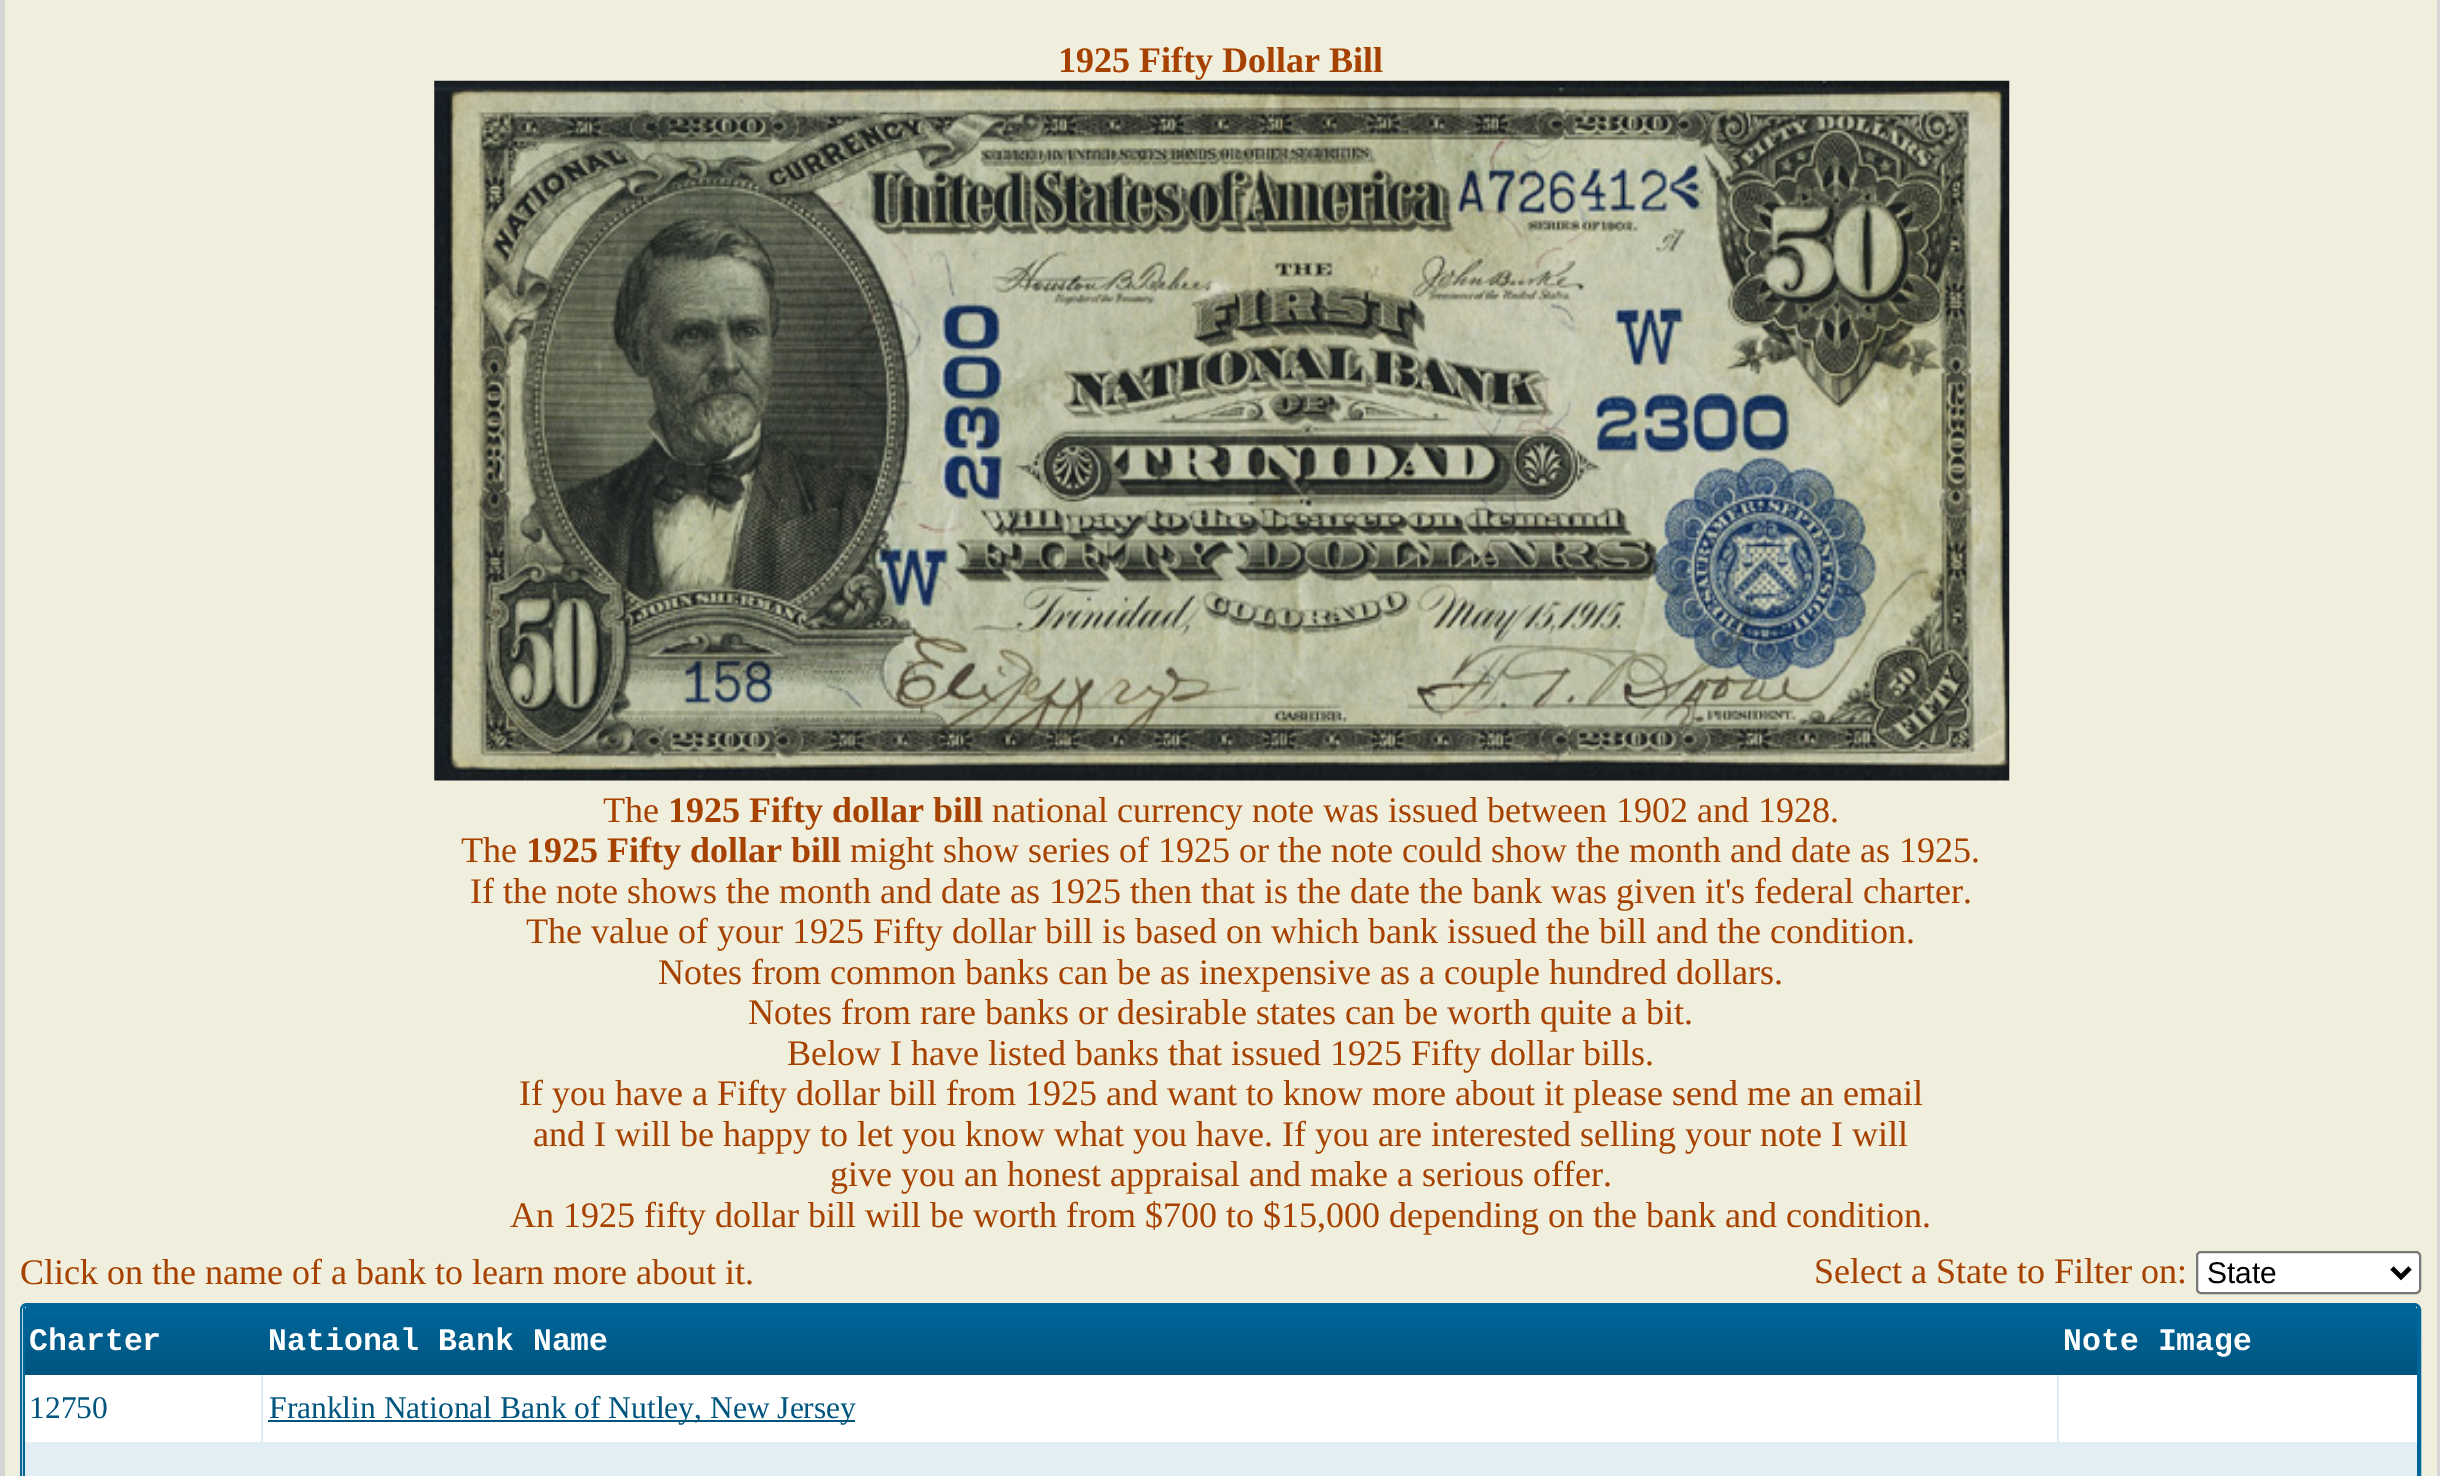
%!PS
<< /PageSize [2440 1476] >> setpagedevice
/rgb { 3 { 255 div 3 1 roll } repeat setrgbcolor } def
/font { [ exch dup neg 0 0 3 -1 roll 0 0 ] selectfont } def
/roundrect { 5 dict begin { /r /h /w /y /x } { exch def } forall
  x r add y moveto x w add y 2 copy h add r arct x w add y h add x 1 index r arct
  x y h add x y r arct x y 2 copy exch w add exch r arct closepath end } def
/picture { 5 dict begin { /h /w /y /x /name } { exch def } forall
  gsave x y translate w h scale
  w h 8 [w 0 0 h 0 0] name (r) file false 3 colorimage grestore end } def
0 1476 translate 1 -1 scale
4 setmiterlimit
213 213 213 rgb
0 0 2440 1476 rectfill
240 239 221 rgb
5 0 2432 1476 rectfill
(img/1.rgb) 434 80 1576 701 picture
255 255 255 rgb
2197 1252 223 41 4 roundrect gsave fill grestore
118 118 118 rgb
2 setlinewidth
stroke
0 0 0 rgb
4.5 setlinewidth
2392 1268 moveto 2401 1277 lineto 2410 1268 lineto stroke
255 255 255 rgb
21 1304 2399 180 6 roundrect gsave fill grestore
0 102 153 rgb
2 setlinewidth
stroke
255 255 255 rgb
23 1305 2396 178 7 roundrect fill
gsave
23 1305 2396 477 5 roundrect clip newpath
[
  [23 1305 2396 2 0 102 153]
  [2417 1305 2 171 0 102 153]
  [23 1305 2 171 0 102 153]
] { aload pop rgb rectfill } forall
grestore
gsave 30 1307 moveto 263 1307 lineto 263 1375 lineto 25 1375 lineto 25 1312 lineto 25 1309 27 1307 30 1307 curveto closepath clip newpath
<< /ShadingType 2 /ColorSpace /DeviceRGB /Coords [25 1307 25 1375] /Extend [true true] /Function << /FunctionType 3 /Domain [0 1] /Functions [<< /FunctionType 2 /Domain [0 1] /C0 [0 0.4 0.6] /C1 [0 0.4 0.6] /N 1 >> << /FunctionType 2 /Domain [0 1] /C0 [0 0.4 0.6] /C1 [0 0.333 0.498] /N 1 >>] /Bounds [0.05] /Encode [0 1 0 1] >> >> shfill grestore
gsave 263 1307 moveto 2059 1307 lineto 2059 1375 lineto 263 1375 lineto closepath clip newpath
<< /ShadingType 2 /ColorSpace /DeviceRGB /Coords [263 1307 263 1375] /Extend [true true] /Function << /FunctionType 3 /Domain [0 1] /Functions [<< /FunctionType 2 /Domain [0 1] /C0 [0 0.4 0.6] /C1 [0 0.4 0.6] /N 1 >> << /FunctionType 2 /Domain [0 1] /C0 [0 0.4 0.6] /C1 [0 0.333 0.498] /N 1 >>] /Bounds [0.05] /Encode [0 1 0 1] >> >> shfill grestore
gsave 2059 1307 moveto 2412 1307 lineto 2415 1307 2417 1309 2417 1312 curveto 2417 1375 lineto 2059 1375 lineto closepath clip newpath
<< /ShadingType 2 /ColorSpace /DeviceRGB /Coords [2059 1307 2059 1375] /Extend [true true] /Function << /FunctionType 3 /Domain [0 1] /Functions [<< /FunctionType 2 /Domain [0 1] /C0 [0 0.4 0.6] /C1 [0 0.4 0.6] /N 1 >> << /FunctionType 2 /Domain [0 1] /C0 [0 0.4 0.6] /C1 [0 0.333 0.498] /N 1 >>] /Bounds [0.05] /Encode [0 1 0 1] >> >> shfill grestore
[
  [25 1442 2392 34 225 238 244]
  [261 1375 2 70 225 238 244]
  [268 1420 587 2 0 85 127]
  [2057 1375 2 70 225 238 244]
] { aload pop rgb rectfill } forall
/LiberationSerif-Bold 36 font
166 65 0 rgb
1058 72 moveto (1925 Fifty Dollar Bill) show
/LiberationSerif-Regular 36 font
603 822 moveto (The) show
/LiberationSerif-Bold 36 font
668 822 moveto (1925 Fifty dollar bill) show
/LiberationSerif-Regular 36 font
992 822 moveto (national currency note was issued between 1902 and 1928.) show
461 862 moveto (The) show
/LiberationSerif-Bold 36 font
526 862 moveto (1925 Fifty dollar bill) show
/LiberationSerif-Regular 36 font
[
  [(might show series of 1925 or the note could show the month and date as 1925.) 850 862]
  [(If the note shows the month and date as 1925 then that is the date the bank was given it's federal charter.) 470 903]
  [(The value of your 1925 Fifty dollar bill is based on which bank issued the bill and the condition.) 526 943]
  [(Notes from common banks can be as inexpensive as a couple hundred dollars.) 658 984]
  [(Notes from rare banks or desirable states can be worth quite a bit.) 748 1024]
  [(Below I have listed banks that issued 1925 Fifty dollar bills.) 787 1065]
  [(If you have a Fifty dollar bill from 1925 and want to know more about it please send me an email) 519 1105]
  [(and I will be happy to let you know what you have. If you are interested selling your note I will) 533 1146]
  [(give you an honest appraisal and make a serious offer.) 830 1186]
  [(An 1925 fifty dollar bill will be worth from $700 to $15,000 depending on the bank and condition.) 510 1227]
  [(Click on the name of a bank to learn more about it.) 20 1284]
  [(Select a State to Filter on:) 1814 1283]
] { aload pop moveto show } forall
/LiberationSans-Regular 30 font
0 0 0 rgb
2207 1283 moveto (State) show
/LiberationMono-Bold 31.5 font
255 255 255 rgb
[
  [(Charter) 29 1350]
  [(National Bank Name) 268 1350]
  [(Note Image) 2063 1350]
] { aload pop moveto show } forall
/LiberationSerif-Regular 31.5 font
0 85 127 rgb
29 1418 moveto (12750) show
269 1418 moveto (Franklin National Bank of Nutley, New Jersey) show
showpage
